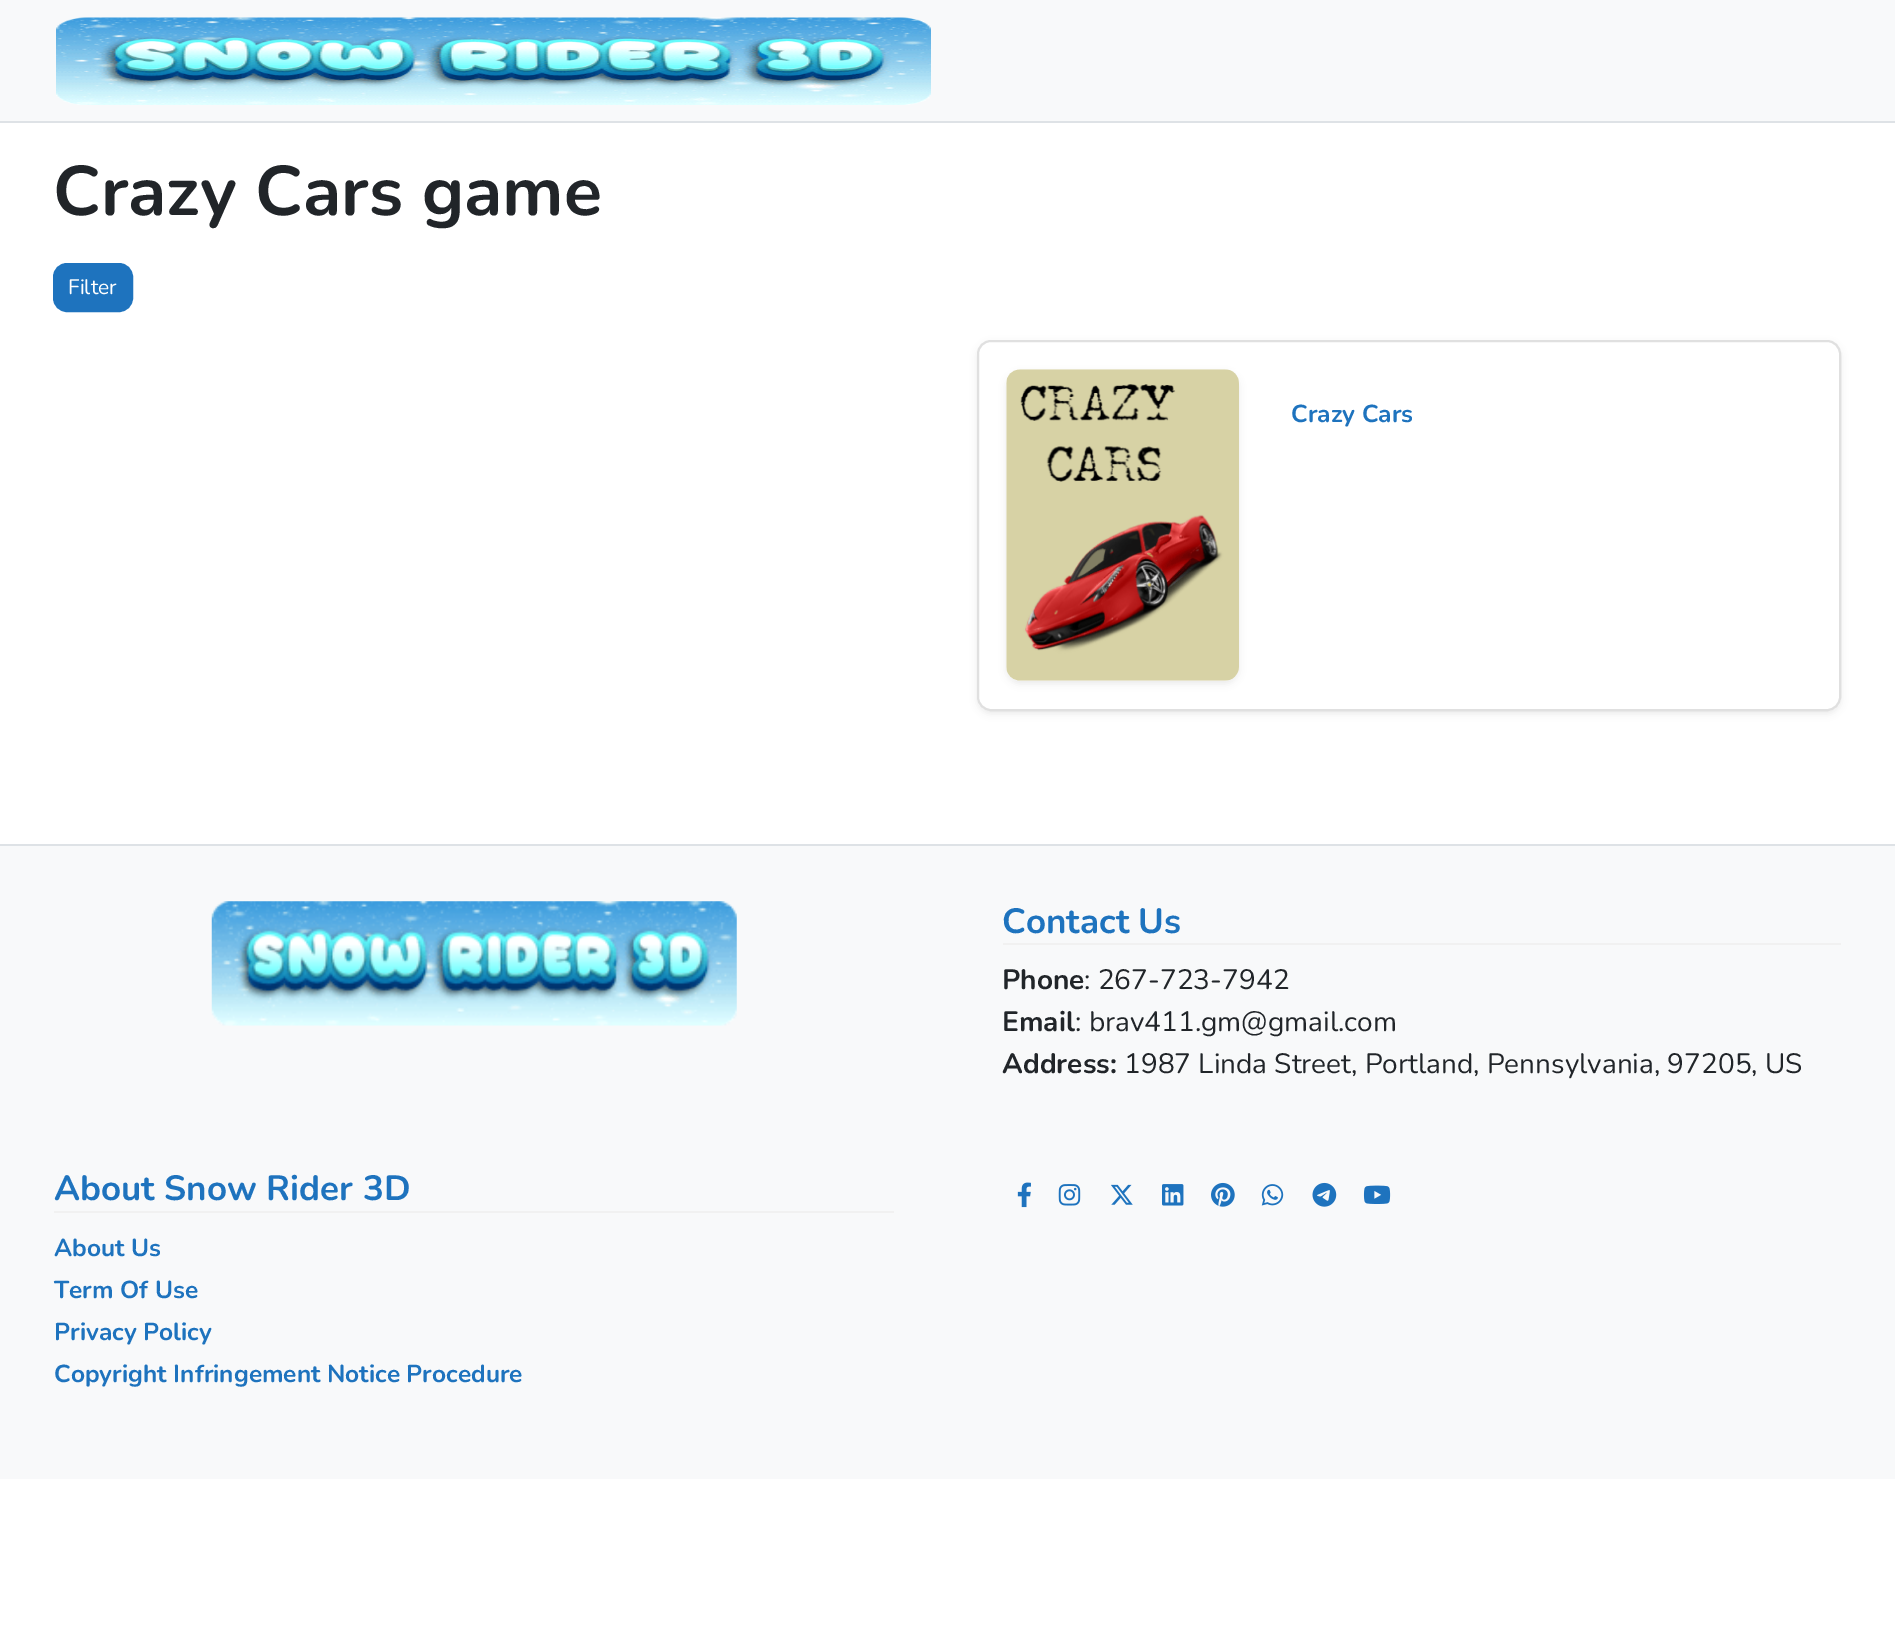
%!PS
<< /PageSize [1895 1627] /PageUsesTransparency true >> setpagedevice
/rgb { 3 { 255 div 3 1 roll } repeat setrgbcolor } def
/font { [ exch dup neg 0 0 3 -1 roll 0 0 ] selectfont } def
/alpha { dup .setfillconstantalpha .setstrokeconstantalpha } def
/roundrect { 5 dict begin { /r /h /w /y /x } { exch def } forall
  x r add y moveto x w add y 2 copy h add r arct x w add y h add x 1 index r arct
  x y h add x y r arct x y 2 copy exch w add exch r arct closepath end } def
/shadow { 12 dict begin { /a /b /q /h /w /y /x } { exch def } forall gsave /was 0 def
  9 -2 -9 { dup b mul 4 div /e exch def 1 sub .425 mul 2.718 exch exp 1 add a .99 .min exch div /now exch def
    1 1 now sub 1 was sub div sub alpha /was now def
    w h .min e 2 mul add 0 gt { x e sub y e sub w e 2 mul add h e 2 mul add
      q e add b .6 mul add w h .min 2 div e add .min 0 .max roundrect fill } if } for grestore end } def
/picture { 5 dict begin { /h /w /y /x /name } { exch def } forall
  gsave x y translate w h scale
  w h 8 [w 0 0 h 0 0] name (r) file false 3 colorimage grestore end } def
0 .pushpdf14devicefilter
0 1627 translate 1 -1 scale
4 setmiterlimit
255 255 255 rgb
0 0 1895 1627 rectfill
248 249 250 rgb
0 0 1895 121 rectfill
222 226 230 rgb
0 121 1895 2 rectfill
(img/1.rgb) 56 17 875 88 picture
30 115 190 rgb
54 264 78 47 13 roundrect gsave fill grestore
2 setlinewidth
stroke
0 0 0 rgb
977 343 864 371 14 3.5 0.07 shadow
255 255 255 rgb
977 340 864 371 14 roundrect fill
0.12 alpha
0 0 0 rgb
978 341 862 369 13 roundrect stroke
1 alpha
1006 373 233 311 14 3.5 0.07 shadow
(img/2.rgb) 1006 369 233 312 picture
248 249 250 rgb
0 846 1895 633 rectfill
222 226 230 rgb
0 844 1895 2 rectfill
(img/3.rgb) 211 901 526 125 picture
241 241 241 rgb
1003 943 838 2 rectfill
54 1211 840 2 rectfill
(img/4.rgb) 1017 1182 14 26 picture
(img/5.rgb) 1058 1184 23 22 picture
(img/6.rgb) 1111 1184 22 21 picture
(img/7.rgb) 1162 1184 22 22 picture
(img/8.rgb) 1211 1182 24 25 picture
(img/9.rgb) 1261 1184 23 22 picture
(img/10.rgb) 1312 1182 25 25 picture
(img/11.rgb) 1363 1185 28 19 picture
/Nunito-Bold 70 font
33 37 41 rgb
53 215 moveto (Crazy Cars game) show
/Nunito-Regular 21 font
255 255 255 rgb
68 294 moveto (Filter) show
/Nunito-Bold 24.5 font
30 115 190 rgb
1291 422 moveto (Crazy Cars) show
/Nunito-Bold 35 font
1002 933 moveto (Contact Us) show
/Nunito-Bold 28 font
33 37 41 rgb
1002 989 moveto (Phone) show
/Nunito-Regular 28 font
1084 989 moveto (: 267-723-7942) show
/Nunito-Bold 28 font
1002 1031 moveto (Email) show
/Nunito-Regular 28 font
1075 1031 moveto (: brav411.gm@gmail.com) show
/Nunito-Bold 28 font
1002 1073 moveto (Address:) show
/Nunito-Regular 28 font
1124 1073 moveto (1987 Linda Street, Portland, Pennsylvania, 97205, US) show
/Nunito-Bold 35 font
30 115 190 rgb
54 1200 moveto (About Snow Rider 3D) show
/Nunito-Bold 24.5 font
[
  [(About Us) 54 1256]
  [(Term Of Use) 54 1298]
  [(Privacy Policy) 54 1340]
  [(Copyright Infringement Notice Procedure) 54 1382]
] { aload pop moveto show } forall
.poppdf14devicefilter showpage
